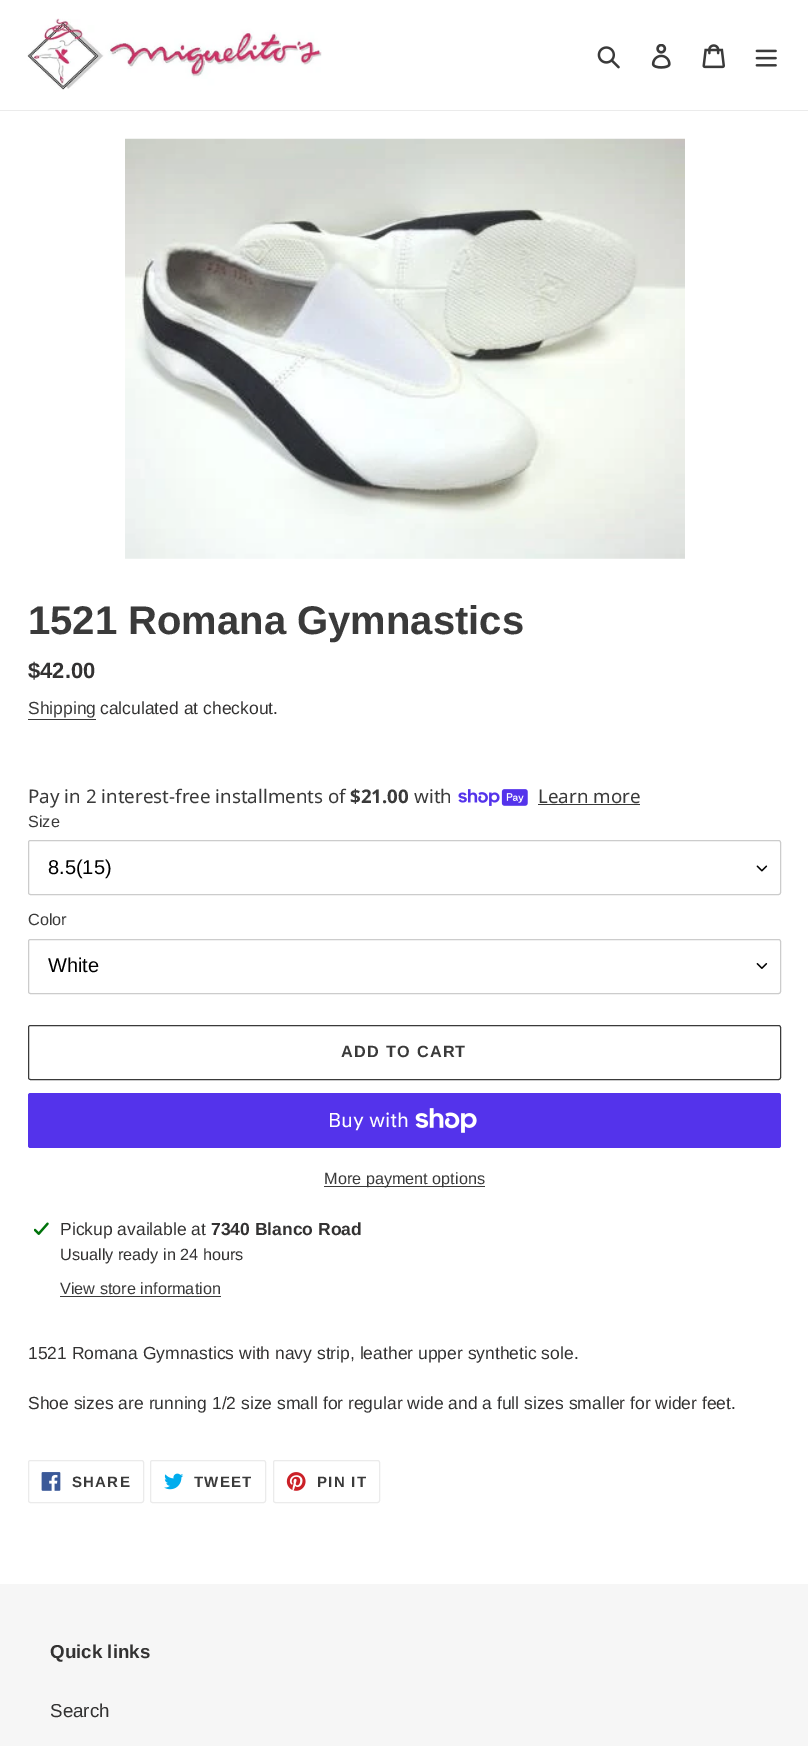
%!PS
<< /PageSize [808 1746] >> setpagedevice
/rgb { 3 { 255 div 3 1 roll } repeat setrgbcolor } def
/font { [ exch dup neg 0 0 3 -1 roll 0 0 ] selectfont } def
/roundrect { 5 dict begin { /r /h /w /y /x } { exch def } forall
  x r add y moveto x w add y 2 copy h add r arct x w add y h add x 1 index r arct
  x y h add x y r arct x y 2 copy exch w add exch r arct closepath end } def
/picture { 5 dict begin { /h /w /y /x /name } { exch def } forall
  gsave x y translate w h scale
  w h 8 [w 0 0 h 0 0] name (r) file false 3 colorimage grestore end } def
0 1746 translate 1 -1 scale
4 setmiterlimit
255 255 255 rgb
0 0 808 1746 rectfill
235 235 235 rgb
0 110 808 1 rectfill
(img/1.rgb) 27 18 295 72 picture
(img/2.rgb) 597 46 23 23 picture
(img/3.rgb) 651 44 20 25 picture
(img/4.rgb) 702 44 23 25 picture
(img/5.rgb) 755 49 22 18 picture
(img/6.rgb) 125 138 560 421 picture
58 58 58 rgb
28 719 68 1 rectfill
(img/7.rgb) 458 789 70 17 picture
538 804 102 1 rectfill
(img/8.rgb) 756 865 12 7 picture
204 204 204 rgb
28.5 840.5 752 54 2 roundrect stroke
(img/9.rgb) 756 963 12 6 picture
28.5 939.5 752 54 2 roundrect stroke
58 58 58 rgb
28.5 1025.5 752 54 2 roundrect stroke
84 51 235 rgb
28 1093 753 55 2.5 roundrect fill
(img/10.rgb) 415 1108 62 25 picture
58 58 58 rgb
324 1186 161 1 rectfill
(img/11.rgb) 34 1222 15 13 picture
60 1296 161 1 rectfill
235 235 235 rgb
28.5 1460.5 115 42 2 roundrect stroke
(img/12.rgb) 41 1472 20 19 picture
150.5 1460.5 115 42 2 roundrect stroke
(img/13.rgb) 164 1473 20 17 picture
273.5 1460.5 106 42 2 roundrect stroke
(img/14.rgb) 286 1472 20 19 picture
246 246 246 rgb
0 1584 808 162 rectfill
/LiberationSans-Bold 40 font
58 58 58 rgb
28 634 moveto (1521 Romana Gymnastics) show
/LiberationSans-Bold 22 font
51 50 50 rgb
28 678 moveto ($42.00) show
/LiberationSans-Regular 17.5 font
58 58 58 rgb
28 714 moveto (Shipping) show
51 50 50 rgb
100 714 moveto (calculated at checkout.) show
/NotoSans-Regular 18.75 font
58 58 58 rgb
28 803 moveto (Pay in 2 interest-free installments of) show
/NotoSans-Bold 18.75 font
350 803 moveto ($21.00) show
/NotoSans-Regular 18.75 font
414 803 moveto (with) show
538 803 moveto (Learn more) show
/LiberationSans-Regular 16.25 font
28 827 moveto (Size) show
/LiberationSans-Regular 20 font
0 0 0 rgb
48 874 moveto (8.5\(15\)) show
/LiberationSans-Regular 16.25 font
58 58 58 rgb
28 925 moveto (Color) show
/LiberationSans-Regular 20 font
0 0 0 rgb
48 972 moveto (White) show
/LiberationSans-Bold 16.25 font
58 58 58 rgb
341 1057 moveto 1.25 0 (ADD TO CART) ashow
/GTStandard-Regular 20 font
255 255 255 rgb
328 1127 moveto (Buy with) show
/LiberationSans-Regular 16.25 font
58 58 58 rgb
324 1184 moveto (More payment options) show
/LiberationSans-Regular 17.5 font
51 50 50 rgb
60 1235 moveto (Pickup available at) show
/LiberationSans-Bold 17.5 font
211 1235 moveto (7340 Blanco Road) show
/LiberationSans-Regular 16.25 font
60 1260 moveto (Usually ready in 24 hours) show
58 58 58 rgb
60 1294 moveto (View store information) show
/LiberationSans-Regular 17.5 font
51 50 50 rgb
28 1359 moveto (1521 Romana Gymnastics with navy strip, leather upper synthetic sole.) show
28 1409 moveto (Shoe sizes are running 1/2 size small for regular wide and a full sizes smaller for wider feet.) show
/LiberationSans-Bold 15 font
58 58 58 rgb
72 1487 moveto 1.25 0 (SHARE) ashow
194 1487 moveto 1.25 0 (TWEET) ashow
317 1487 moveto 1.25 0 (PIN IT) ashow
/LiberationSans-Bold 18.75 font
51 50 50 rgb
50 1658 moveto (Quick links) show
/LiberationSans-Regular 18.75 font
50 1717 moveto (Search) show
showpage
